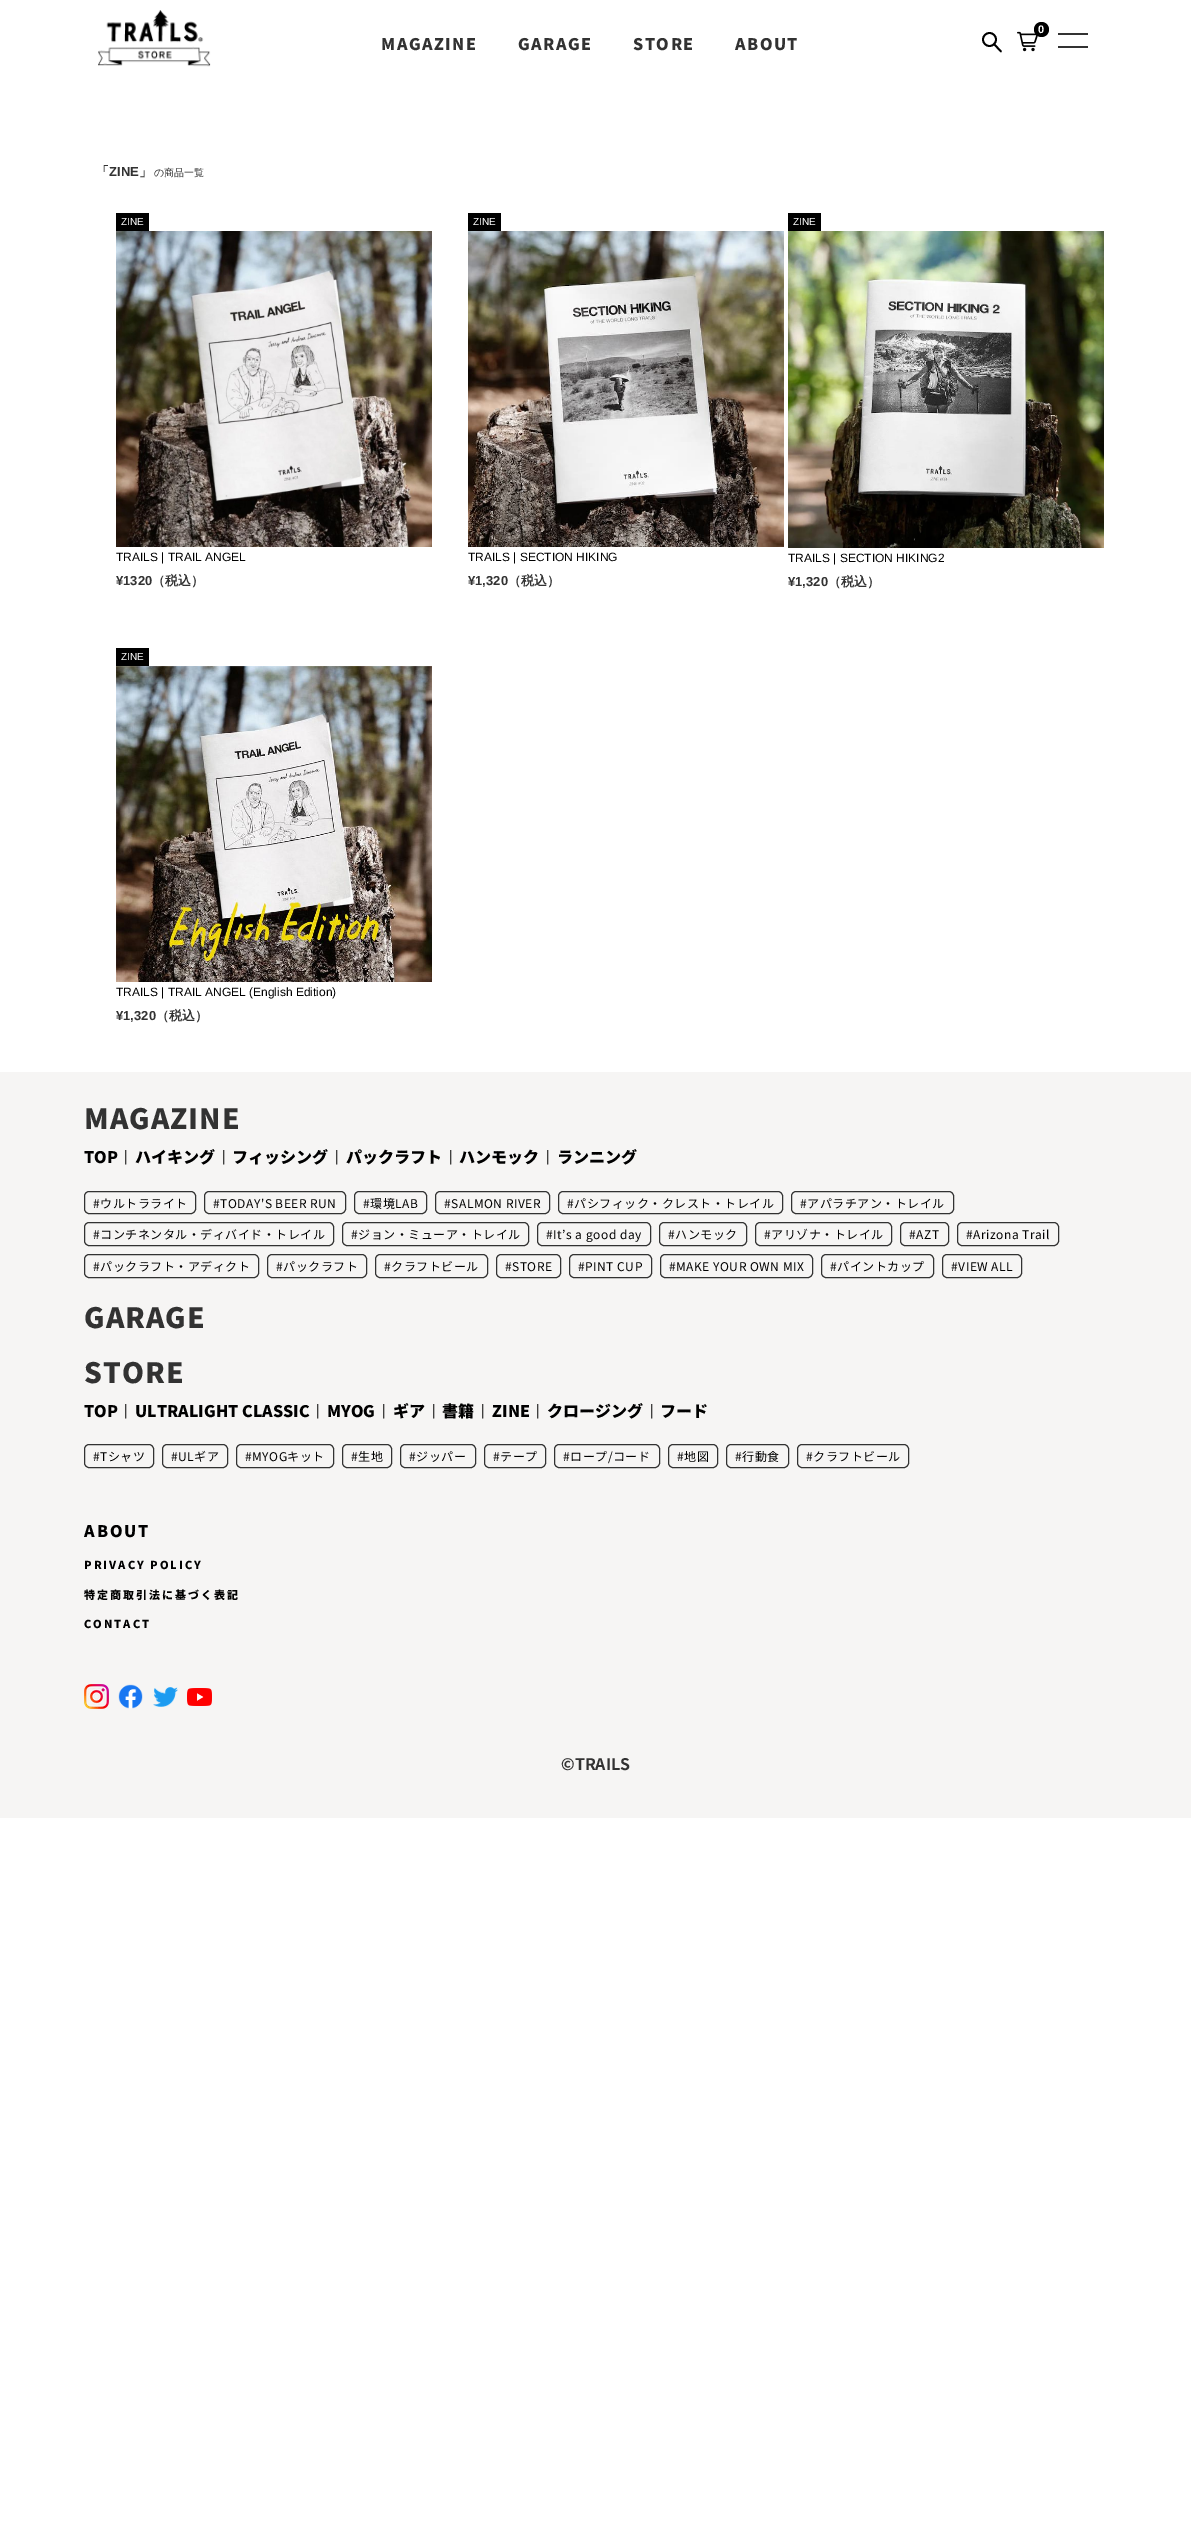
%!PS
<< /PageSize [1191 2535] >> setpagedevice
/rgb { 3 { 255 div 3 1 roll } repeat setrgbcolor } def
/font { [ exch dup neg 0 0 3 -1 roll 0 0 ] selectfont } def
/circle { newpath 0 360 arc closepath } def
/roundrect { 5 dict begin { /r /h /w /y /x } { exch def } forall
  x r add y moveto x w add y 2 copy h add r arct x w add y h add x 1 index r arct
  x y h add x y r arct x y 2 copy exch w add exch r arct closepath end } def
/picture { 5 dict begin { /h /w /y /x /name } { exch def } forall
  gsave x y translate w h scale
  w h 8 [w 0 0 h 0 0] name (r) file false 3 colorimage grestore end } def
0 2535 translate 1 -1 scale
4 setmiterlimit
255 255 255 rgb
0 0 1191 2535 rectfill
(img/1.rgb) 1017 31 21 21 picture
0 0 0 rgb
1041.5 29.5 7.5 circle fill
(img/2.rgb) 98 10 113 57 picture
1.8 setlinewidth
989.5 39.5 6.5 circle stroke
1 setlinecap
994 44 moveto 1001 51.5 lineto stroke
[
  [1058 33 30 2 50 50 50]
  [1058 46 30 2 50 50 50]
  [116 213 33 18 0 0 0]
] { aload pop rgb rectfill } forall
(img/3.rgb) 116 231 316 316 picture
468 213 33 18 rectfill
(img/4.rgb) 468 231 316 316 picture
788 213 33 18 rectfill
(img/5.rgb) 788 231 316 317 picture
116 648 33 18 rectfill
(img/6.rgb) 116 666 316 316 picture
246 245 244 rgb
0 1072 1191 746 rectfill
50 50 50 rgb
1 setlinewidth
0 setlinecap
84.5 1191.5 111 22 4.5 roundrect stroke
204.5 1191.5 141 22 4.5 roundrect stroke
354.5 1191.5 72 22 4.5 roundrect stroke
435.5 1191.5 114 22 4.5 roundrect stroke
558.5 1191.5 224 22 4.5 roundrect stroke
791.5 1191.5 162 22 4.5 roundrect stroke
84.5 1222.5 249 23 4.5 roundrect stroke
342.5 1222.5 186 23 4.5 roundrect stroke
537.5 1222.5 113 23 4.5 roundrect stroke
659.5 1222.5 87 23 4.5 roundrect stroke
755.5 1222.5 136 23 4.5 roundrect stroke
900.5 1222.5 48 23 4.5 roundrect stroke
957.5 1222.5 101 23 4.5 roundrect stroke
84.5 1254.5 174 23 4.5 roundrect stroke
267.5 1254.5 99 23 4.5 roundrect stroke
375.5 1254.5 112 23 4.5 roundrect stroke
496.5 1254.5 64 23 4.5 roundrect stroke
569.5 1254.5 82 23 4.5 roundrect stroke
660.5 1254.5 152 23 4.5 roundrect stroke
821.5 1254.5 112 23 4.5 roundrect stroke
942.5 1254.5 79 23 4.5 roundrect stroke
84.5 1444.5 69 23 4.5 roundrect stroke
162.5 1444.5 65 23 4.5 roundrect stroke
236.5 1444.5 97 23 4.5 roundrect stroke
342.5 1444.5 49 23 4.5 roundrect stroke
400.5 1444.5 75 23 4.5 roundrect stroke
484.5 1444.5 61 23 4.5 roundrect stroke
554.5 1444.5 105 23 4.5 roundrect stroke
668.5 1444.5 49 23 4.5 roundrect stroke
726.5 1444.5 62 23 4.5 roundrect stroke
797.5 1444.5 111 23 4.5 roundrect stroke
(img/7.rgb) 84 1684 25 25 picture
(img/8.rgb) 118 1684 25 25 picture
(img/9.rgb) 153 1687 25 20 picture
(img/10.rgb) 187 1688 25 18 picture
/LiberationSans-Bold 11 font
255 255 255 rgb
1038 33 moveto (0) show
/NotoSansJP-Black 16 font
50 50 50 rgb
381 50 moveto 1.5 0 (MAGAZINE) ashow
518 50 moveto 1.5 0 (GARAGE) ashow
633 50 moveto 1.5 0 (STORE) ashow
735 50 moveto 1.5 0 (ABOUT) ashow
/WenQuanYiZenHei-Bold 13 font
96 176 moveto (「) show
/LiberationSans-Bold 13 font
109 176 moveto (ZINE) show
/WenQuanYiZenHei-Bold 13 font
139 176 moveto (」) show
/WenQuanYiZenHei-Medium 10 font
154 176 moveto (の商品一覧) show
/LiberationSans-Regular 10 font
255 255 255 rgb
121 225 moveto (ZINE) show
/LiberationSans-Regular 12 font
0 0 0 rgb
116 561 moveto (TRAILS | TRAIL ANGEL) show
/LiberationSans-Bold 13 font
50 50 50 rgb
116 585 moveto (¥1320) show
/WenQuanYiZenHei-Bold 13 font
152 585 moveto (（税込）) show
/LiberationSans-Regular 10 font
255 255 255 rgb
473 225 moveto (ZINE) show
/LiberationSans-Regular 12 font
0 0 0 rgb
468 561 moveto (TRAILS | SECTION HIKING) show
/LiberationSans-Bold 13 font
50 50 50 rgb
468 585 moveto (¥1,320) show
/WenQuanYiZenHei-Bold 13 font
508 585 moveto (（税込）) show
/LiberationSans-Regular 10 font
255 255 255 rgb
793 225 moveto (ZINE) show
/LiberationSans-Regular 12 font
0 0 0 rgb
788 562 moveto (TRAILS | SECTION HIKING2) show
/LiberationSans-Bold 13 font
50 50 50 rgb
788 586 moveto (¥1,320) show
/WenQuanYiZenHei-Bold 13 font
828 586 moveto (（税込）) show
/LiberationSans-Regular 10 font
255 255 255 rgb
121 660 moveto (ZINE) show
/LiberationSans-Regular 12 font
0 0 0 rgb
116 996 moveto (TRAILS | TRAIL ANGEL \(English Edition\)) show
/LiberationSans-Bold 13 font
50 50 50 rgb
116 1020 moveto (¥1,320) show
/WenQuanYiZenHei-Bold 13 font
156 1020 moveto (（税込）) show
/NotoSansJP-Black 28 font
84 1129 moveto 1 0 (MAGAZINE) ashow
/NotoSansJP-Black 16 font
0 0 0 rgb
84 1163 moveto (TOP) show
/NotoSansJP-Regular 13 font
124 1161 moveto (|) show
/NotoSansJP-Black 16 font
135 1163 moveto (ハイキング) show
/NotoSansJP-Regular 13 font
222 1161 moveto (|) show
/NotoSansJP-Black 16 font
232 1163 moveto (フィッシング) show
/NotoSansJP-Regular 13 font
335 1161 moveto (|) show
/NotoSansJP-Black 16 font
346 1163 moveto (パックラフト) show
/NotoSansJP-Regular 13 font
449 1161 moveto (|) show
/NotoSansJP-Black 16 font
459 1163 moveto (ハンモック) show
/NotoSansJP-Regular 13 font
546 1161 moveto (|) show
/NotoSansJP-Black 16 font
557 1163 moveto (ランニング) show
/NotoSansJP-Regular 12 font
93 1208 moveto 0.5 0 (#ウルトラライト) ashow
213 1208 moveto 0.5 0 (#TODAY'S BEER RUN) ashow
363 1208 moveto 0.5 0 (#環境LAB) ashow
444 1208 moveto 0.5 0 (#SALMON RIVER) ashow
567 1208 moveto 0.5 0 (#パシフィック・クレスト・トレイル) ashow
800 1208 moveto 0.5 0 (#アパラチアン・トレイル) ashow
93 1239 moveto 0.5 0 (#コンチネンタル・ディバイド・トレイル) ashow
351 1239 moveto 0.5 0 (#ジョン・ミューア・トレイル) ashow
546 1239 moveto 0.5 0 (#It’s a good day) ashow
668 1239 moveto 0.5 0 (#ハンモック) ashow
764 1239 moveto 0.5 0 (#アリゾナ・トレイル) ashow
909 1239 moveto 0.5 0 (#AZT) ashow
966 1239 moveto 0.5 0 (#Arizona Trail) ashow
93 1271 moveto 0.5 0 (#パックラフト・アディクト) ashow
276 1271 moveto 0.5 0 (#パックラフト) ashow
384 1271 moveto 0.5 0 (#クラフトビール) ashow
505 1271 moveto 0.5 0 (#STORE) ashow
578 1271 moveto 0.5 0 (#PINT CUP) ashow
669 1271 moveto 0.5 0 (#MAKE YOUR OWN MIX) ashow
830 1271 moveto 0.5 0 (#パイントカップ) ashow
951 1271 moveto 0.5 0 (#VIEW ALL) ashow
/NotoSansJP-Black 28 font
50 50 50 rgb
84 1328 moveto 1 0 (GARAGE) ashow
84 1383 moveto 1 0 (STORE) ashow
/NotoSansJP-Black 16 font
0 0 0 rgb
84 1417 moveto (TOP) show
/NotoSansJP-Regular 13 font
124 1415 moveto (|) show
/NotoSansJP-Black 16 font
135 1417 moveto (ULTRALIGHT CLASSIC) show
/NotoSansJP-Regular 13 font
316 1415 moveto (|) show
/NotoSansJP-Black 16 font
327 1417 moveto (MYOG) show
/NotoSansJP-Regular 13 font
382 1415 moveto (|) show
/NotoSansJP-Black 16 font
393 1417 moveto (ギア) show
/NotoSansJP-Regular 13 font
432 1415 moveto (|) show
/NotoSansJP-Black 16 font
442 1417 moveto (書籍) show
/NotoSansJP-Regular 13 font
481 1415 moveto (|) show
/NotoSansJP-Black 16 font
492 1417 moveto (ZINE) show
/NotoSansJP-Regular 13 font
536 1415 moveto (|) show
/NotoSansJP-Black 16 font
547 1417 moveto (クロージング) show
/NotoSansJP-Regular 13 font
650 1415 moveto (|) show
/NotoSansJP-Black 16 font
660 1417 moveto (フード) show
/NotoSansJP-Regular 12 font
93 1461 moveto 0.5 0 (#Tシャツ) ashow
171 1461 moveto 0.5 0 (#ULギア) ashow
245 1461 moveto 0.5 0 (#MYOGキット) ashow
351 1461 moveto 0.5 0 (#生地) ashow
409 1461 moveto 0.5 0 (#ジッパー) ashow
493 1461 moveto 0.5 0 (#テープ) ashow
563 1461 moveto 0.5 0 (#ロープ/コード) ashow
677 1461 moveto 0.5 0 (#地図) ashow
735 1461 moveto 0.5 0 (#行動食) ashow
806 1461 moveto 0.5 0 (#クラフトビール) ashow
/NotoSansJP-Black 16 font
84 1537 moveto 2 0 (ABOUT) ashow
/NotoSansJP-Black 11 font
84 1569 moveto 2 0 (PRIVACY POLICY) ashow
gsave
84 1516 1024 138 rectclip
84 1599 moveto 2 0 (特定商取引法に基づく表記) ashow
grestore
84 1628 moveto 2 0 (CONTACT) ashow
/NotoSansJP-Bold 16 font
50 50 50 rgb
561 1770 moveto (©TRAILS) show
showpage
